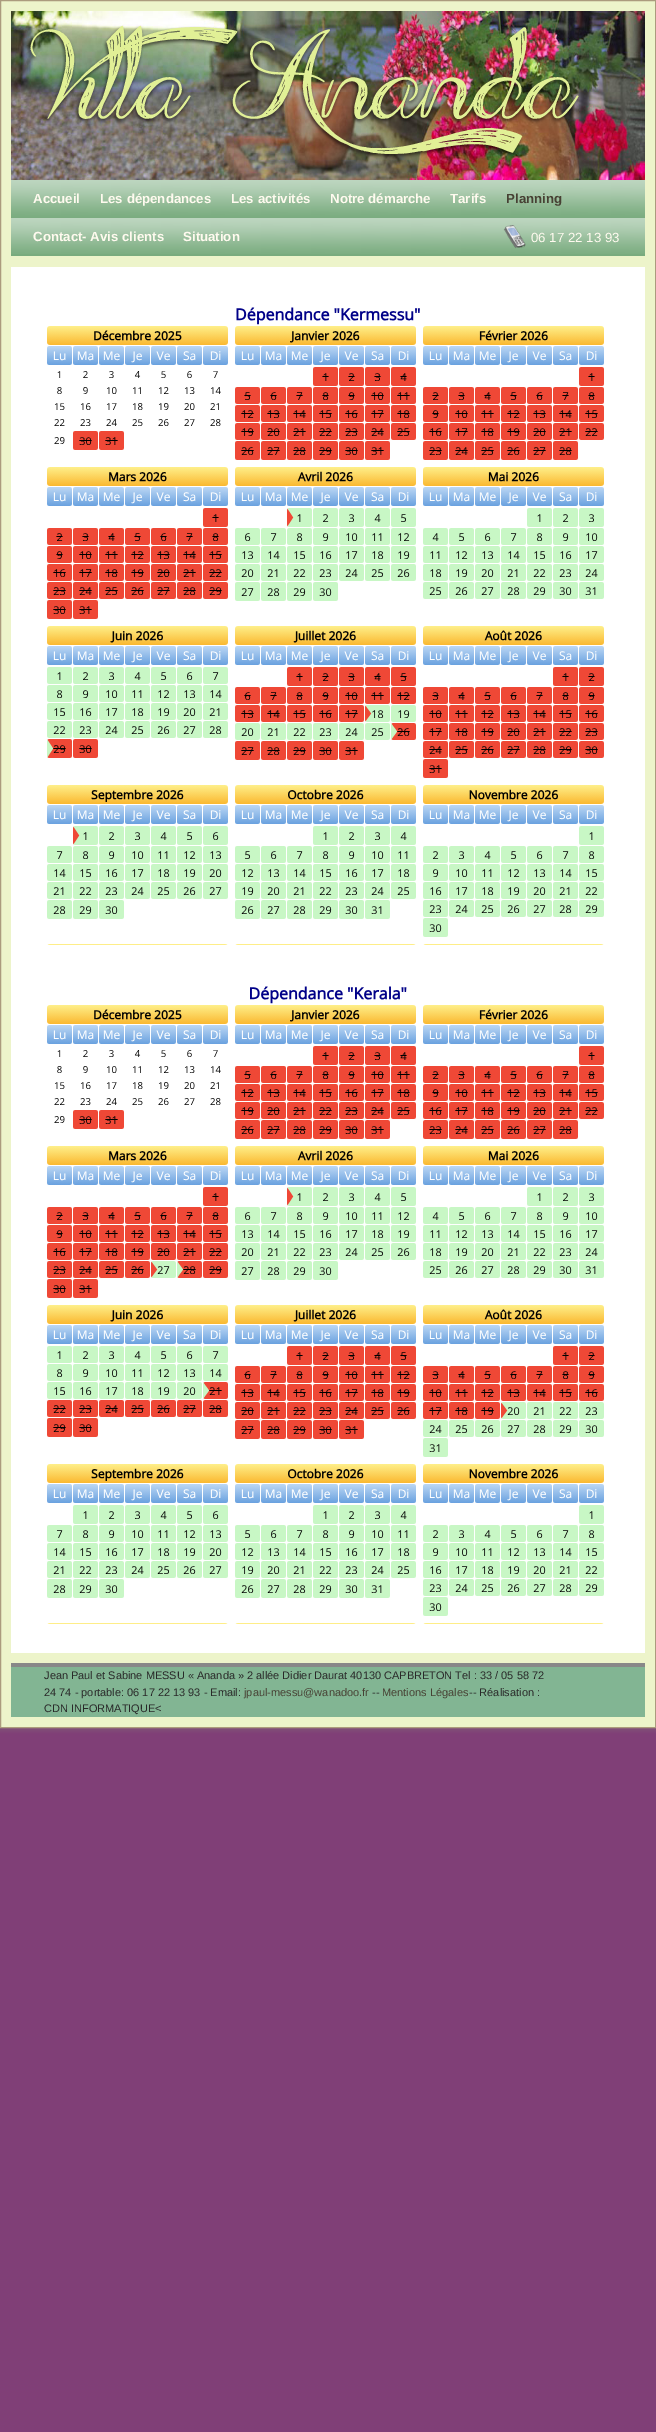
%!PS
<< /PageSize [656 2432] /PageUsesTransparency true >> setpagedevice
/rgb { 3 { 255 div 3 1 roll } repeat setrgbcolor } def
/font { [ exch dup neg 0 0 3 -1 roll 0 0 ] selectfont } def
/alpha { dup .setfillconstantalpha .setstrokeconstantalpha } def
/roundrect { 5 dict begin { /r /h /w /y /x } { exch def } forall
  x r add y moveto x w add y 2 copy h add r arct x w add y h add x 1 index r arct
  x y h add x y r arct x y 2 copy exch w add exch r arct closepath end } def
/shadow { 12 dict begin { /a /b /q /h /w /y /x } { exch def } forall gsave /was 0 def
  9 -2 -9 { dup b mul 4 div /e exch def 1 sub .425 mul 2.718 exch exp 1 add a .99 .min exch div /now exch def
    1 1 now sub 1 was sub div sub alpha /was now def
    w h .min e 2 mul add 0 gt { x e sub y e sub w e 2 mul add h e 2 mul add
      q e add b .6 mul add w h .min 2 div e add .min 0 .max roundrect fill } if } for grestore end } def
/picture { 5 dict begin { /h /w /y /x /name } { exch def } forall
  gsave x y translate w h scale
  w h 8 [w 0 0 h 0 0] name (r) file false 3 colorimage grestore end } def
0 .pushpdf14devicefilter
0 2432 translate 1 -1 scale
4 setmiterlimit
128 63 119 rgb
0 0 656 2432 rectfill
127 127 127 rgb
-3 -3 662 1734 0 1.5 0.25 shadow
237 244 202 rgb
0.5 0.5 moveto 655.5 0.5 lineto 655.5 1727.5 lineto 0.5 1727.5 lineto closepath gsave fill grestore
171 155 125 rgb
stroke
(img/1.rgb) 11 11 634 169 picture
(img/2.rgb) 27 25 552 134 picture
121 171 126 rgb
11 180 634 76 rectfill
(img/3.rgb) 11 180 634 74 picture
(img/4.rgb) 503 225 23 24 picture
255 255 255 rgb
11 267 634 1386 rectfill
(img/5.rgb) 47 307 557 638 picture
(img/6.rgb) 47 986 557 638 picture
130 181 147 rgb
11 1667 634 50 rectfill
136 136 136 rgb
11 1663 634 4 rectfill
/LiberationSans-Bold 13.25 font
255 250 239 rgb
[
  [(Accueil) 33 203]
  [(Les dépendances) 100 203]
  [(Les activités) 231 203]
  [(Notre démarche) 330 203]
  [(Tarifs) 450 203]
] { aload pop moveto show } forall
71 65 52 rgb
506 203 moveto (Planning) show
255 250 239 rgb
33 241 moveto (Contact- Avis clients) show
183 241 moveto (Situation) show
/LiberationSans-Regular 13.25 font
531 242 moveto (06 17 22 13 93) show
/LiberationSans-Regular 11 font
41 41 41 rgb
44 1679 moveto (Jean Paul et Sabine MESSU « Ananda » 2 allée Didier Daurat 40130 CAPBRETON Tel : 33 / 05 58 72) show
44 1696 moveto (24 74 - portable: 06 17 22 13 93 - Email:) show
71 65 52 rgb
244 1696 moveto (jpaul-messu@wanadoo.fr) show
41 41 41 rgb
372 1696 moveto (--) show
71 65 52 rgb
382 1696 moveto (Mentions Légales) show
41 41 41 rgb
469 1696 moveto (-- Réalisation :) show
44 1712 moveto (CDN INFORMATIQUE<) show
.poppdf14devicefilter showpage
